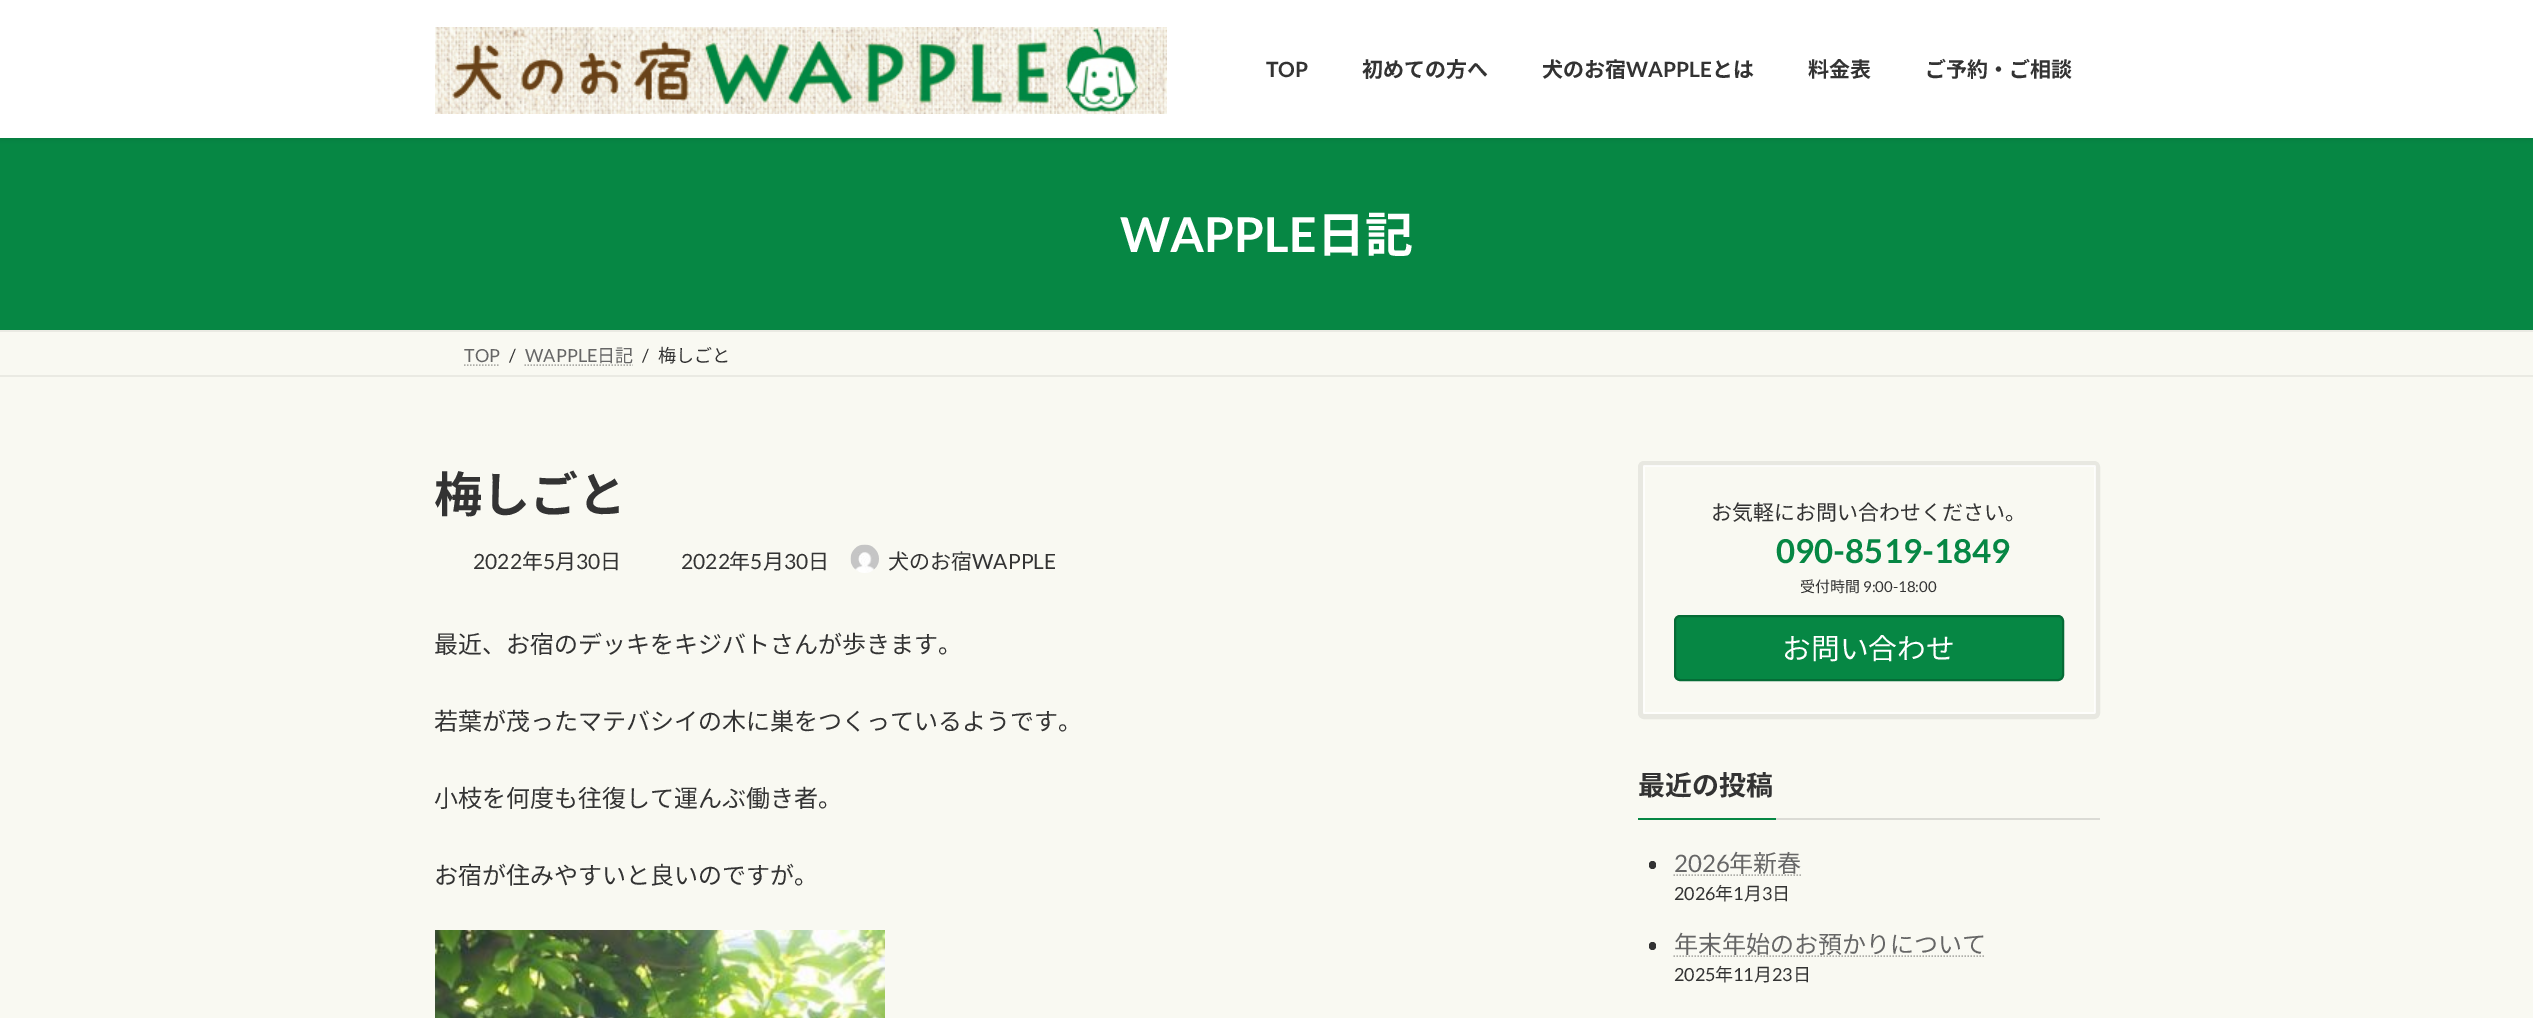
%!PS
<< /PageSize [2533 1018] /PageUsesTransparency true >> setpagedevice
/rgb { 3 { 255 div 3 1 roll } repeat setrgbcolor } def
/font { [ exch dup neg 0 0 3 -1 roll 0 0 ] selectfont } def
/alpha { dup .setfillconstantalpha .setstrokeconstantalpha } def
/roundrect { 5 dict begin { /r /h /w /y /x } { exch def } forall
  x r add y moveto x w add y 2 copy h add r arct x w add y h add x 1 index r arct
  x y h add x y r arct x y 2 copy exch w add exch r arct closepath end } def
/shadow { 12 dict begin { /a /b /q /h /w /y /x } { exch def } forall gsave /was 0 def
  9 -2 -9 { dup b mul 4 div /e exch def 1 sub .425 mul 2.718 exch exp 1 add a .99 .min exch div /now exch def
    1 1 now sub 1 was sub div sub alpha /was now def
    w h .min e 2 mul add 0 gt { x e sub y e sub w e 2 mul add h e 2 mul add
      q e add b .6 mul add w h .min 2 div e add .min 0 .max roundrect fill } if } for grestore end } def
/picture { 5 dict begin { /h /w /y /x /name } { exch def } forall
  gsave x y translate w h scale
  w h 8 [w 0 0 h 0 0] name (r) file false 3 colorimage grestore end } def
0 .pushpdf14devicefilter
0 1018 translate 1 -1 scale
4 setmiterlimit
249 249 242 rgb
0 0 2533 1018 rectfill
6 135 68 rgb
0 138 2533 192 rectfill
0 0 0 rgb
0 2 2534 138 0 2 0.05 shadow
255 255 255 rgb
0 0 2533 138 rectfill
(img/1.rgb) 435 27 732 87 picture
234 234 227 rgb
0 330 2533 2 rectfill
0 375 2533 2 rectfill
174 174 169 rgb
1.5 setlinewidth
[1.5 1.5] 0 setdash
464 365 moveto 500 365 lineto stroke
524.5 365 moveto 633 365 lineto stroke
(img/2.rgb) 850 544 29 29 picture
(img/3.rgb) 435 930 450 88 picture
232 232 225 rgb
5 setlinewidth
[] 0 setdash
1640.5 463.5 457 253 3.5 roundrect stroke
0.8 alpha
255 255 255 rgb
1644 465 moveto 1644 465 1643 466 1643 466 curveto 1643 712 lineto 1643 713 1644 714 1644 714 curveto 2094 714 lineto 2095 714 2096 713 2096 712 curveto 2096 466 lineto 2096 466 2095 465 2094 465 curveto closepath 1645 467 moveto 1645 712 lineto 2094 712 lineto 2094 467 lineto closepath eofill
1 alpha
6 135 68 rgb
1675 616 388 64 5 roundrect gsave fill grestore
5 108 54 rgb
2 setlinewidth
stroke
219 219 213 rgb
1776 818 324 2 rectfill
6 135 68 rgb
1638 818 138 2 rectfill
51 51 51 rgb
1649 861 7 8 3.5 roundrect fill
174 174 169 rgb
1.5 setlinewidth
[1.5 1.5] 0 setdash
1673.5 875 moveto 1801 875 lineto stroke
51 51 51 rgb
1649 942 7 8 3.5 roundrect fill
174 174 169 rgb
1673.5 956 moveto 1985.5 956 lineto stroke
/Lato-Bold 21 font
51 51 51 rgb
1266 77 moveto (TOP) show
/NotoSansJP-Bold 21 font
1362 77 moveto (初めての方へ) show
1542 77 moveto (犬のお宿) show
/Lato-Bold 21 font
1626 77 moveto (WAPPLE) show
/NotoSansJP-Bold 21 font
[
  [(とは) 1712 77]
  [(料金表) 1808 77]
  [(ご予約・ご相談) 1925 77]
] { aload pop moveto show } forall
/Lato-Bold 48 font
255 255 255 rgb
1120 252 moveto (WAPPLE) show
/NotoSansJP-Bold 48 font
1317 252 moveto (日記) show
/Lato-Regular 18 font
102 102 102 rgb
464 362 moveto (TOP) show
51 51 51 rgb
509 362 moveto (/) show
102 102 102 rgb
525 362 moveto (WAPPLE) show
/NotoSansJP-Regular 18 font
597 362 moveto (日記) show
/Lato-Regular 18 font
51 51 51 rgb
642 362 moveto (/) show
/NotoSansJP-Regular 18 font
658 362 moveto (梅しごと) show
/NotoSansJP-Bold 48 font
434 512 moveto (梅しごと) show
/Lato-Regular 21 font
473 569 moveto (2022) show
/NotoSansJP-Regular 21 font
522 569 moveto (年) show
/Lato-Regular 21 font
543 569 moveto (5) show
/NotoSansJP-Regular 21 font
555 569 moveto (月) show
/Lato-Regular 21 font
576 569 moveto (30) show
/NotoSansJP-Regular 21 font
600 569 moveto (日) show
/Lato-Regular 21 font
681 569 moveto (2022) show
/NotoSansJP-Regular 21 font
729 569 moveto (年) show
/Lato-Regular 21 font
750 569 moveto (5) show
/NotoSansJP-Regular 21 font
763 569 moveto (月) show
/Lato-Regular 21 font
784 569 moveto (30) show
/NotoSansJP-Regular 21 font
808 569 moveto (日) show
888 569 moveto (犬のお宿) show
/Lato-Regular 21 font
972 569 moveto (WAPPLE) show
/NotoSansJP-Regular 24 font
[
  [(最近、お宿のデッキをキジバトさんが歩きます。) 434 653]
  [(若葉が茂ったマテバシイの木に巣をつくっているようです。) 434 730]
  [(小枝を何度も往復して運んぶ働き者。) 434 807]
  [(お宿が住みやすいと良いのですが。) 434 884]
] { aload pop moveto show } forall
/NotoSansJP-Regular 21 font
1711 520 moveto (お気軽にお問い合わせください。) show
/Lato-Bold 33 font
6 135 68 rgb
1776 563 moveto (090-8519-1849) show
/NotoSansJP-Regular 15 font
51 51 51 rgb
1800 592 moveto (受付時間) show
/Lato-Regular 15 font
1863 592 moveto (9:00-18:00) show
/NotoSansJP-Regular 28.75 font
255 255 255 rgb
1782 659 moveto (お問い合わせ) show
/NotoSansJP-Bold 27 font
51 51 51 rgb
1638 795 moveto (最近の投稿) show
/Lato-Regular 24 font
102 102 102 rgb
1674 872 moveto (2026) show
/NotoSansJP-Regular 24 font
1729 872 moveto (年新春) show
/Lato-Regular 18 font
51 51 51 rgb
1674 900 moveto (2026) show
/NotoSansJP-Regular 18 font
1715 900 moveto (年) show
/Lato-Regular 18 font
1733 900 moveto (1) show
/NotoSansJP-Regular 18 font
1744 900 moveto (月) show
/Lato-Regular 18 font
1762 900 moveto (3) show
/NotoSansJP-Regular 18 font
1772 900 moveto (日) show
/NotoSansJP-Regular 24 font
102 102 102 rgb
1674 953 moveto (年末年始のお預かりについて) show
/Lato-Regular 18 font
51 51 51 rgb
1674 981 moveto (2025) show
/NotoSansJP-Regular 18 font
1715 981 moveto (年) show
/Lato-Regular 18 font
1733 981 moveto (11) show
/NotoSansJP-Regular 18 font
1754 981 moveto (月) show
/Lato-Regular 18 font
1772 981 moveto (23) show
/NotoSansJP-Regular 18 font
1793 981 moveto (日) show
.poppdf14devicefilter showpage
